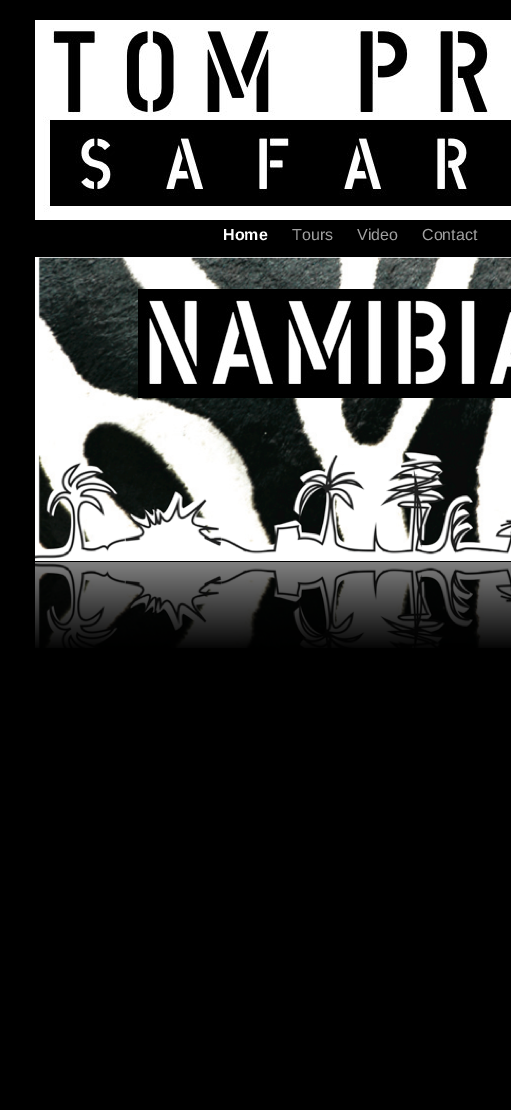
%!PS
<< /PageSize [511 1110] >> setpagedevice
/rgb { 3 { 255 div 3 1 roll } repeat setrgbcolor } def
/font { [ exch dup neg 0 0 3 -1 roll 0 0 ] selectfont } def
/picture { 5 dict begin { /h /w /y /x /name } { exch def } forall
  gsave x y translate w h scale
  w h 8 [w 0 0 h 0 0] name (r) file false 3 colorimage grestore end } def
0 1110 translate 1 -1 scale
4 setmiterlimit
0 0 0 rgb
0 0 511 1110 rectfill
(img/1.rgb) 35 20 476 200 picture
(img/2.rgb) 35 257 476 304 picture
(img/3.rgb) 35 562 476 86 picture
(img/4.rgb) 138 289 373 109 picture
/LiberationSans-Bold 16 font
255 255 255 rgb
223 240 moveto (Home) show
/LiberationSans-Regular 16 font
161 161 161 rgb
[
  [(Tours) 292 240]
  [(Video) 357 240]
  [(Contact) 422 240]
] { aload pop moveto show } forall
showpage
